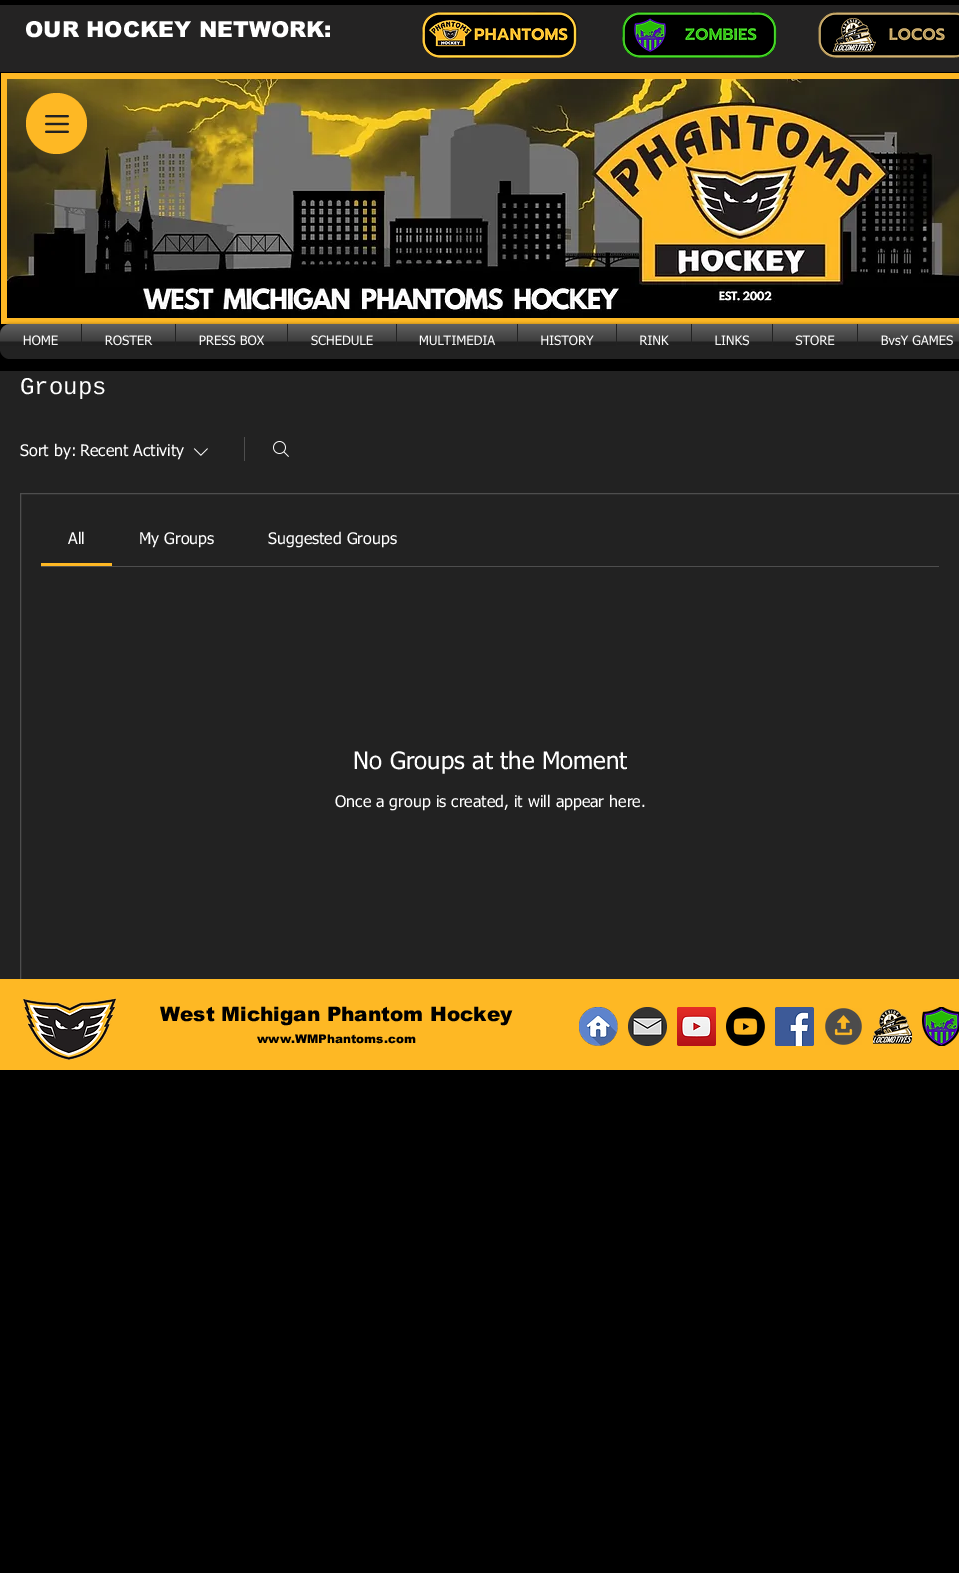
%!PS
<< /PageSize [959 1573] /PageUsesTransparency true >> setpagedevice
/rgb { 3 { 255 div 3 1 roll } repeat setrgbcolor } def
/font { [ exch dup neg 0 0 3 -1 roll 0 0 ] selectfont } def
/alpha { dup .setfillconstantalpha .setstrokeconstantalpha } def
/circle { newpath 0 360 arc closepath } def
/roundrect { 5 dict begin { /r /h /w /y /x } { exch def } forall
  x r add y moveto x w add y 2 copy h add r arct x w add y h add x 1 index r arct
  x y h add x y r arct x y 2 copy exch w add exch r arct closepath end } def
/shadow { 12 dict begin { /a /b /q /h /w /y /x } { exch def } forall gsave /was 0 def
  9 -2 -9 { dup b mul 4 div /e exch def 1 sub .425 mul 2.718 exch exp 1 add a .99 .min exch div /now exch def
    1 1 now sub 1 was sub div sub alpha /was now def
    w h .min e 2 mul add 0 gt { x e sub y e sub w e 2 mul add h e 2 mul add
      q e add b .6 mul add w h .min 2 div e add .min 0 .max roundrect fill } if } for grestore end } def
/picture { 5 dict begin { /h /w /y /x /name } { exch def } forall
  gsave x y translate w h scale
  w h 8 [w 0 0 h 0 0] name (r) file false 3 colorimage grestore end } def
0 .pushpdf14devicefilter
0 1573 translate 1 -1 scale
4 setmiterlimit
0 0 0 rgb
0 0 959 1573 rectfill
36 35 35 rgb
0 5 959 67 rectfill
(img/1.rgb) 421 11 157 48 picture
(img/2.rgb) 622 11 155 48 picture
(img/3.rgb) 818 12 141 47 picture
254 184 36 rgb
1 73 958 251 rectfill
(img/4.rgb) 7 79 952 239 picture
56.5 123.5 30.5 circle fill
(img/5.rgb) 45 115 24 18 picture
0 0 0 rgb
0 325 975 35 10 2 0.6 shadow
(img/6.rgb) 0 324 10 10 picture
34 34 34 rgb
10 324 moveto 81 324 lineto 81 359 lineto 10 359 lineto 4.5 359 0 354.5 0 349 curveto 0 334 lineto 0 328.5 4.5 324 10 324 curveto closepath fill
81 324 878 35 rectfill
0 371 959 608 rectfill
(img/17.rgb) 193 448 15 8 picture
78 78 78 rgb
244 437 1 24 rectfill
(img/18.rgb) 273 441 16 16 picture
20.5 493.5 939 502 rectstroke
[
  [41 566 898 1 78 78 78]
  [41 563 71 3 254 184 36]
  [0 979 959 91 254 184 36]
] { aload pop rgb rectfill } forall
(img/19.rgb) 23 998 93 62 picture
(img/20.rgb) 579 1007 39 39 picture
(img/21.rgb) 628 1007 39 39 picture
(img/22.rgb) 677 1007 39 39 picture
(img/23.rgb) 726 1007 39 39 picture
(img/24.rgb) 775 1007 39 39 picture
(img/25.rgb) 825 1008 37 37 picture
(img/26.rgb) 873 1008 39 37 picture
(img/27.rgb) 922 1007 37 39 picture
/arial-Black 22 font
255 255 255 rgb
25 37 moveto (OUR HOCKEY NETWORK:) show
/tahoma-Regular 13 font
23 345 moveto (HOME) show
(img/7.rgb) 0 324 81 22 picture
105 345 moveto (ROSTER) show
(img/8.rgb) 82 324 93 22 picture
199 345 moveto (PRESS BOX) show
(img/9.rgb) 176 324 111 22 picture
311 345 moveto (SCHEDULE) show
(img/10.rgb) 288 324 108 22 picture
419 345 moveto (MULTIMEDIA) show
(img/11.rgb) 397 324 120 22 picture
540 345 moveto (HISTORY) show
(img/12.rgb) 518 324 98 22 picture
639 345 moveto (RINK) show
(img/13.rgb) 617 324 74 21 picture
715 345 moveto (LINKS) show
(img/14.rgb) 692 324 80 21 picture
795 345 moveto (STORE) show
(img/15.rgb) 773 324 84 22 picture
881 345 moveto (BvsY GAMES) show
(img/16.rgb) 858 324 101 22 picture
/LiberationMono-Regular 24 font
20 394 moveto (Groups) show
/tahoma-Regular 16 font
[
  [(Sort by:) 20 456]
  [(Recent Activity) 80 456]
  [(All) 68 544]
  [(My Groups) 139 544]
  [(Suggested Groups) 268 544]
] { aload pop moveto show } forall
/tahoma-Regular 24 font
353 769 moveto (No Groups at the Moment) show
/tahoma-Regular 16 font
335 807 moveto (Once a group is created, it will appear here.) show
/arial-Black 20 font
0 0 0 rgb
160 1021 moveto (West Michigan Phantom Hockey) show
/arial-Black 12 font
257 1043 moveto (www.WMPhantoms.com) show
.poppdf14devicefilter showpage
